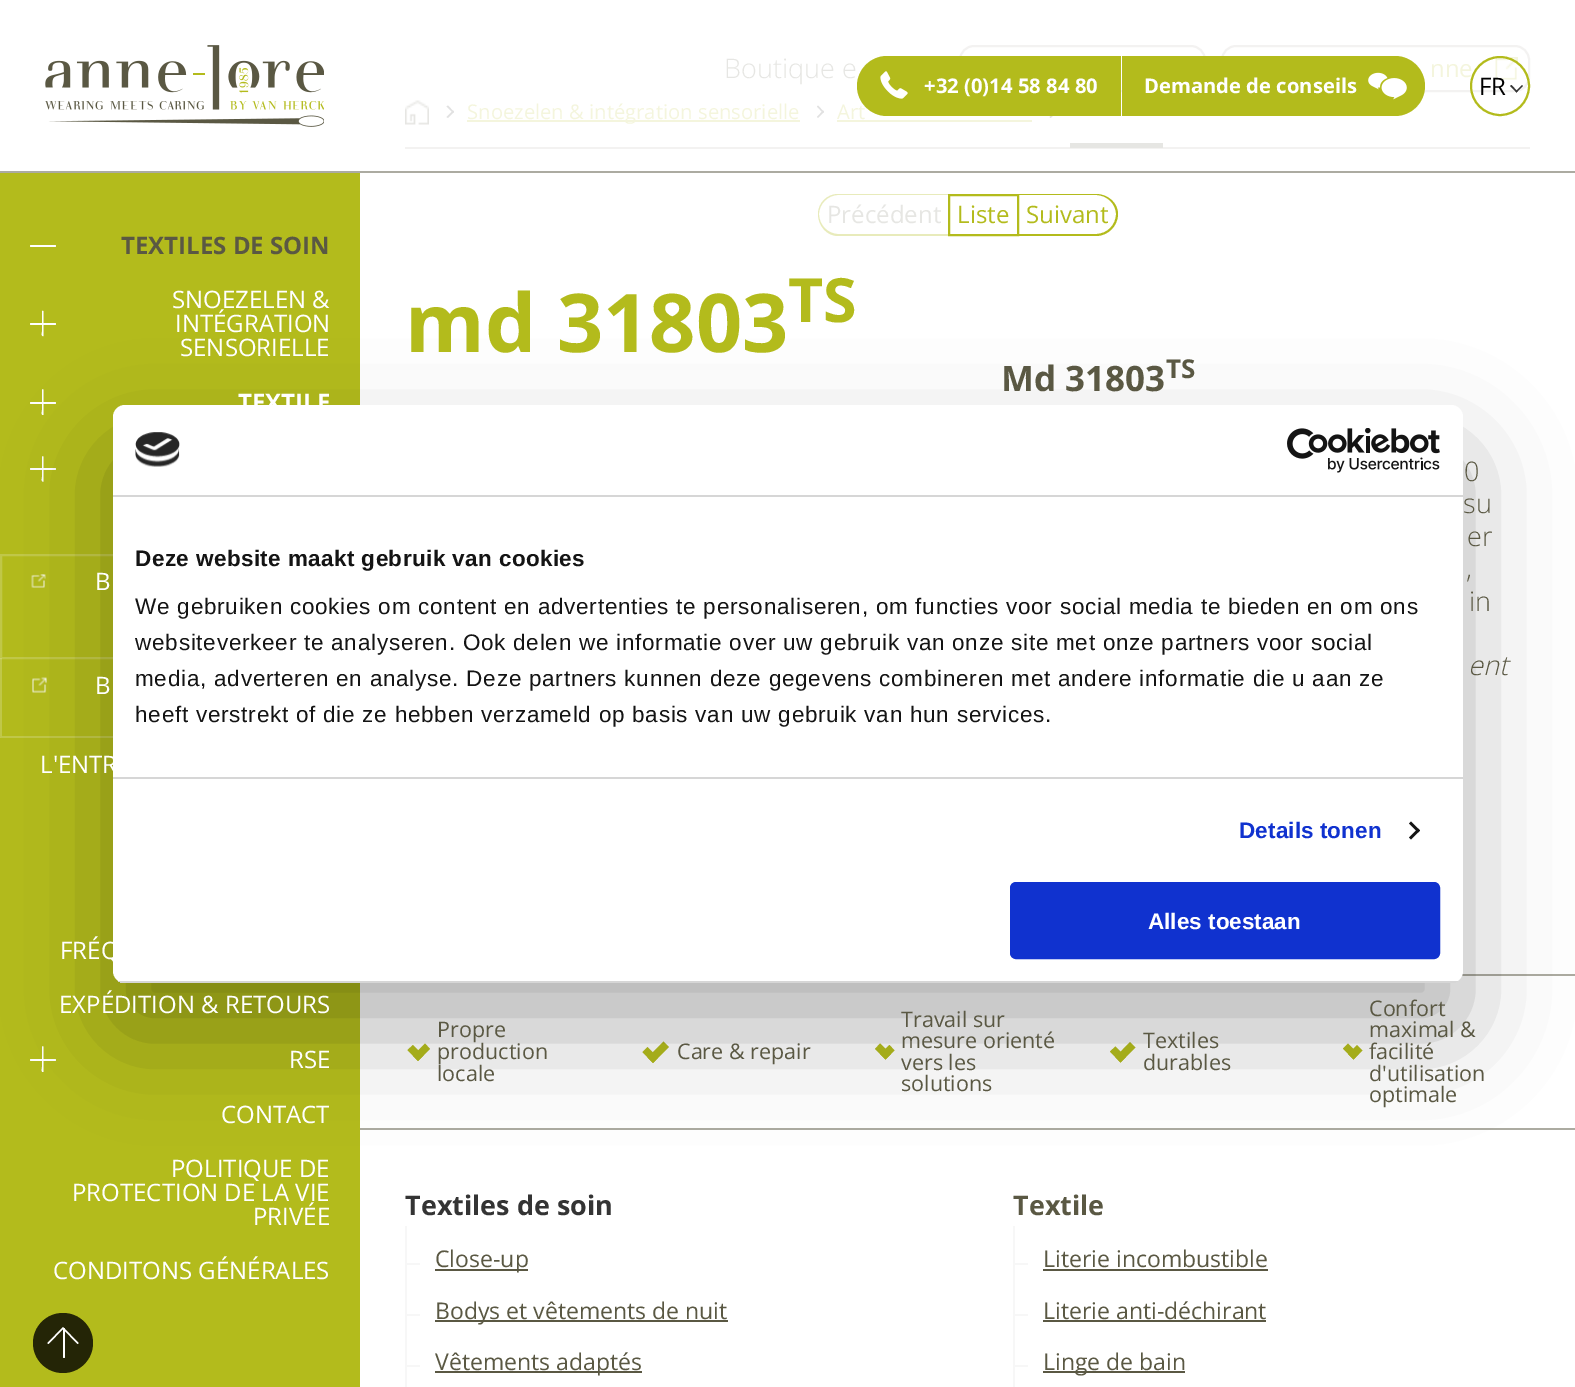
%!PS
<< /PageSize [1575 1387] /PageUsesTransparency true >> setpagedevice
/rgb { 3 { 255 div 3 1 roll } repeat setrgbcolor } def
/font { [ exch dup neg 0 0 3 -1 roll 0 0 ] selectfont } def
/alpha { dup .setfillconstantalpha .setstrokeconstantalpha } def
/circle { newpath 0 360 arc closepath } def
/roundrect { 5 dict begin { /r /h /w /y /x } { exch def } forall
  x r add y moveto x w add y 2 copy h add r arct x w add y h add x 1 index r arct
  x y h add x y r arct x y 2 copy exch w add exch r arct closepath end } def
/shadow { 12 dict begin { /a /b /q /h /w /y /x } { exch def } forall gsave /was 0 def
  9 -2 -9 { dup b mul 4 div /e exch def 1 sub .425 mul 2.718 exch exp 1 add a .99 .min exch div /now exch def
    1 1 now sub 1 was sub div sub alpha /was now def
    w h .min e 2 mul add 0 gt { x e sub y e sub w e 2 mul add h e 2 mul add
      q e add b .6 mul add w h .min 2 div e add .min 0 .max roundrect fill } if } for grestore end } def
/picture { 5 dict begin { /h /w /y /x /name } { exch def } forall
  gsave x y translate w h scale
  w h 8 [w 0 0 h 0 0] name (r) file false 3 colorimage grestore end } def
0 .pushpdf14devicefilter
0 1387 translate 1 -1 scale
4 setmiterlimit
255 255 255 rgb
0 0 1575 1387 rectfill
179 187 28 rgb
0 173 360 1214 rectfill
255 255 255 rgb
30 245 26 2 1 roundrect fill
30 323 26 2 1 roundrect fill
43.5 311.5 moveto 43.5 336 lineto 43.5 336 42.5 336.5 42.5 336 curveto 41 335 42 333 42 331.5 curveto 42 329.5 42 311.5 42 311 curveto 42.5 310.5 43.5 311 43.5 311.5 curveto closepath fill
30 402 26 2 1 roundrect fill
43.5 390 moveto 43.5 414.5 lineto 43.5 415 42.5 415 42.5 415 curveto 41 414 42 412 42 410 curveto 42 408 42 390 42 389.5 curveto 42.5 389 43.5 389.5 43.5 390 curveto closepath fill
30 468 26 2 1 roundrect fill
43.5 457 moveto 43.5 481.5 lineto 43.5 481.5 42.5 482 42.5 481.5 curveto 41 480.5 42 478.5 42 477 curveto 42 475 42 457 42 456.5 curveto 42.5 456 43.5 456.5 43.5 457 curveto closepath fill
194 201 73 rgb
2 setlinewidth
1 555 358 103 rectstroke
(img/1.rgb) 31 574 15 14 picture
0.2 alpha
255 255 255 rgb
360 738 moveto 0 738 lineto 2 736 lineto 358 736 lineto closepath fill
0 738 moveto 0 658 lineto 2 658 lineto 2 736 lineto closepath fill
1 alpha
(img/2.rgb) 32 677 15 16 picture
30 1059 26 2 1 roundrect fill
43.5 1047 moveto 43.5 1071.5 lineto 43.5 1072 42.5 1072 42.5 1072 curveto 41 1071 42 1069 42 1067 curveto 42 1065 42 1047 42 1046.5 curveto 42.5 1046 43.5 1046.5 43.5 1047 curveto closepath fill
243 242 241 rgb
405 147 1125 2 rectfill
960 46 245 45 14 roundrect stroke
1222 46 307 45 14 roundrect stroke
(img/3.rgb) 1495 57 23 23 picture
(img/4.rgb) 405 100 24 25 picture
225 225 225 rgb
448 105.5 moveto 454 112 lineto 453 113 lineto 446.5 106.5 lineto closepath fill
453 110.5 moveto 454 112 lineto 448 118 lineto 446.5 117 lineto closepath fill
244 245 221 rgb
467 120 333 2 rectfill
225 225 225 rgb
818 105.5 moveto 824 112 lineto 823 113 lineto 817 106.5 lineto closepath fill
823 110.5 moveto 824 112 lineto 818 118 lineto 817 117 lineto closepath fill
244 245 221 rgb
837 120 195 2 rectfill
225 225 225 rgb
1056 110.5 moveto 1057 112 lineto 1050.5 118 lineto 1049.5 117 lineto closepath fill
230 230 227 rgb
1070 143 93 5 rectfill
232 235 187 rgb
838 194 moveto 948 194 lineto 948 236 lineto 838 236 lineto 827 236 818 226 818 214 curveto 818 203 827 194 838 194 curveto closepath 838 195 moveto 948 195 lineto 948 234 lineto 838 234 lineto 828 234 819 225 819 214 curveto 819 204 828 195 838 195 curveto closepath eofill
179 187 28 rgb
949 195 69 40 rectstroke
1018 194 moveto 1096 194 lineto 1108 194 1118 203 1118 214 curveto 1118 226 1108 236 1096 236 curveto 1018 236 lineto closepath 1018 195 moveto 1096 195 lineto 1107 195 1116 204 1116 214 curveto 1116 225 1107 234 1096 234 curveto 1018 234 lineto closepath eofill
1122 56 moveto 1395 56 lineto 1411.5 56 1425 69.5 1425 86 curveto 1425 102.5 1411.5 116 1395 116 curveto 1122 116 lineto closepath fill
(img/6.rgb) 1368 72 39 28 picture
172 171 161 rgb
0 171 1575 2 rectfill
(img/7.rgb) 45 45 279 82 picture
36 37 6 rgb
63 1343 30 circle fill
255 255 255 rgb
63 1328 2 30 1 roundrect fill
62.5 1327.5 moveto 63.5 1327.5 lineto 78.5 1343 lineto 78.5 1343.5 lineto 77.5 1344 lineto 62.5 1328.5 lineto closepath fill
63.5 1327.5 moveto 63.5 1328.5 lineto 48.5 1344 lineto 47.5 1343.5 lineto 47.5 1343 lineto 62.5 1327.5 lineto closepath fill
172 171 161 rgb
1461 974 114 2 rectfill
179 187 28 rgb
413 1055.5 moveto 425 1043.5 lineto 430 1049 lineto 418 1061 lineto closepath fill
407.5 1050 moveto 413 1045 lineto 423.5 1055.5 lineto 418 1061 lineto closepath fill
647.5 1057.5 moveto 663.5 1041.5 lineto 669 1047 lineto 653 1063 lineto closepath fill
642.5 1052 moveto 647.5 1047 lineto 658 1057.5 lineto 653 1063 lineto closepath fill
880 1054 moveto 889.5 1045 lineto 894.5 1050.5 lineto 885.5 1059.5 lineto closepath fill
875 1049 moveto 880 1043.5 lineto 891 1054 lineto 885.5 1059.5 lineto closepath fill
1115.5 1057 moveto 1130 1042 lineto 1135.5 1047.5 lineto 1120.5 1062.5 lineto closepath fill
1110 1051.5 moveto 1115.5 1046.5 lineto 1126 1057 lineto 1120.5 1062.5 lineto closepath fill
1348 1054 moveto 1357 1045 lineto 1362.5 1050.5 lineto 1353.5 1059.5 lineto closepath fill
1343 1048.5 moveto 1348 1043.5 lineto 1358.5 1054 lineto 1353.5 1059.5 lineto closepath fill
[
  [360 1128 1215 2 172 171 161]
  [405 1226 2 161 247 247 247]
  [405 1263 15 2 247 247 247]
  [435 1269 93 2 90 88 67]
  [405 1314 15 2 247 247 247]
  [435 1320 293 2 90 88 67]
  [405 1365 15 2 247 247 247]
  [435 1371 207 2 90 88 67]
  [1013 1226 2 161 247 247 247]
  [1013 1263 15 2 247 247 247]
  [1043 1269 225 2 90 88 67]
  [1013 1314 15 2 247 247 247]
  [1043 1320 223 2 90 88 67]
  [1013 1365 15 2 247 247 247]
  [1043 1371 142 2 90 88 67]
] { aload pop rgb rectfill } forall
0 0 0 rgb
113 453 1350 578 12 51 0.3 shadow
255 255 255 rgb
113 405 1350 578 12 roundrect fill
214 214 214 rgb
113 495 1350 2 rectfill
(img/8.rgb) 135 432 45 35 picture
(img/9.rgb) 1287 428 153 45 picture
113 777 1350 2 rectfill
20 20 20 rgb
1411 821.5 moveto 1420 830.5 lineto 1418 832.5 lineto 1409 823.5 lineto closepath fill
1418 828.5 moveto 1420 830.5 lineto 1411 839.5 lineto 1409 837.5 lineto closepath fill
gsave
113 405 1350 578 12 roundrect clip newpath
214 214 214 rgb
113 981 1350 2 rectfill
grestore
16 50 207 rgb
1011.5 883.5 427 74 4.5 roundrect gsave fill grestore
3 setlinewidth
stroke
/OpenSans-Bold 24 font
90 88 67 rgb
121 254 moveto (TEXTILES DE SOIN) show
/OpenSans-Regular 24 font
255 255 255 rgb
[
  [(SNOEZELEN &) 172 308]
  [(INTÉGRATION) 175 332]
  [(SENSORIELLE) 180 356]
] { aload pop moveto show } forall
/OpenSans-Bold 24 font
238 411 moveto (TEXTILE) show
/OpenSans-Regular 24 font
[
  [(B) 95 590]
  [(B) 95 694]
  [(L'ENTR) 40 773]
  [(FRÉQ) 60 959]
  [(EXPÉDITION & RETOURS) 59 1013]
  [(RSE) 289 1068]
  [(CONTACT) 221 1123]
  [(POLITIQUE DE) 171 1177]
  [(PROTECTION DE LA VIE) 72 1201]
  [(PRIVÉE) 253 1225]
  [(CONDITONS GÉNÉRALES) 53 1279]
] { aload pop moveto show } forall
/OpenSans-Light 27 font
230 230 227 rgb
724 78 moveto (Boutique e) show
/OpenSans-Regular 24 font
244 245 221 rgb
1430 77 moveto (nne) show
/OpenSans-Regular 20.25 font
467 119 moveto (Snoezelen & intégration sensorielle) show
837 119 moveto (Art) show
/OpenSans-Regular 24 font
230 230 227 rgb
827 223 moveto (Précédent) show
179 187 28 rgb
957 223 moveto (Liste) show
1026 223 moveto (Suivant) show
/OpenSans-Bold 81 font
405 352 moveto (md 31803) show
/OpenSans-Bold 61 font
788 322 moveto (TS) show
/OpenSans-Bold 35 font
90 88 67 rgb
1001 391 moveto (Md 31803) show
/OpenSans-Bold 26 font
1166 378 moveto (TS) show
/OpenSans-Light 27 font
[
  [(0) 1464 481]
  [(su) 1463 513]
  [(er) 1467 546]
  [(,) 1466 578]
  [(in) 1469 611]
] { aload pop moveto show } forall
/OpenSans-LightItalic 27 font
1468 675 moveto (ent) show
179 187 28 rgb
887 56 moveto 1121 56 lineto 1121 116 lineto 887 116 lineto 870.5 116 857 102.5 857 86 curveto 857 69.5 870.5 56 887 56 curveto closepath fill
(img/5.rgb) 880 71 28 28 picture
/OpenSans-Bold 20.25 font
255 255 255 rgb
924 93 moveto (+32 \(0\)14 58 84 80) show
1144 93 moveto (Demande de conseils) show
179 187 28 rgb
2 setlinewidth
1500 86 29 circle stroke
/OpenSans-Regular 24 font
0 0 0 rgb
1479 95 moveto (FR) show
52 52 52 rgb
1522 85 moveto 1523 86 lineto 1516.5 92.5 lineto 1515.5 91.5 lineto closepath fill
1511.5 85 moveto 1517.5 91.5 lineto 1516.5 92.5 lineto 1510 86 lineto closepath fill
/OpenSans-Regular 21.5 font
90 88 67 rgb
[
  [(Propre) 437 1037]
  [(production) 437 1059]
  [(locale) 437 1081]
  [(Care & repair) 677 1059]
  [(Travail sur) 901 1027]
  [(mesure orienté) 901 1048]
  [(vers les) 901 1070]
  [(solutions) 901 1091]
  [(Textiles) 1143 1048]
  [(durables) 1143 1070]
  [(Confort) 1369 1016]
  [(maximal &) 1369 1037]
  [(facilité) 1369 1059]
  [(d'utilisation) 1369 1081]
  [(optimale) 1369 1102]
] { aload pop moveto show } forall
/OpenSans-Bold 27 font
52 52 52 rgb
405 1215 moveto (Textiles de soin) show
/OpenSans-Regular 23 font
90 88 67 rgb
[
  [(Close-up) 435 1267]
  [(Bodys et vêtements de nuit) 435 1319]
  [(Vêtements adaptés) 435 1370]
] { aload pop moveto show } forall
/OpenSans-Bold 27 font
1013 1215 moveto (Textile) show
/OpenSans-Regular 23 font
[
  [(Literie incombustible) 1043 1267]
  [(Literie anti-déchirant) 1043 1319]
  [(Linge de bain) 1043 1370]
] { aload pop moveto show } forall
/LiberationSans-Bold 22.5 font
20 20 20 rgb
135 566 moveto 0.4 0 (Deze website maakt gebruik van cookies) ashow
/LiberationSans-Regular 22.5 font
135 614 moveto 0.75 0 (We gebruiken cookies om content en advertenties te personaliseren, om functies voor social media te bieden en om ons) ashow
135 650 moveto 0.75 0 (websiteverkeer te analyseren. Ook delen we informatie over uw gebruik van onze site met onze partners voor social) ashow
135 686 moveto 0.75 0 (media, adverteren en analyse. Deze partners kunnen deze gegevens combineren met andere informatie die u aan ze) ashow
135 722 moveto 0.75 0 (heeft verstrekt of die ze hebben verzameld op basis van uw gebruik van hun services.) ashow
/LiberationSans-Bold 22.5 font
16 50 207 rgb
1239 838 moveto 0.1 0 (Details tonen) ashow
255 255 255 rgb
1148 929 moveto (Alles toestaan) show
.poppdf14devicefilter showpage
